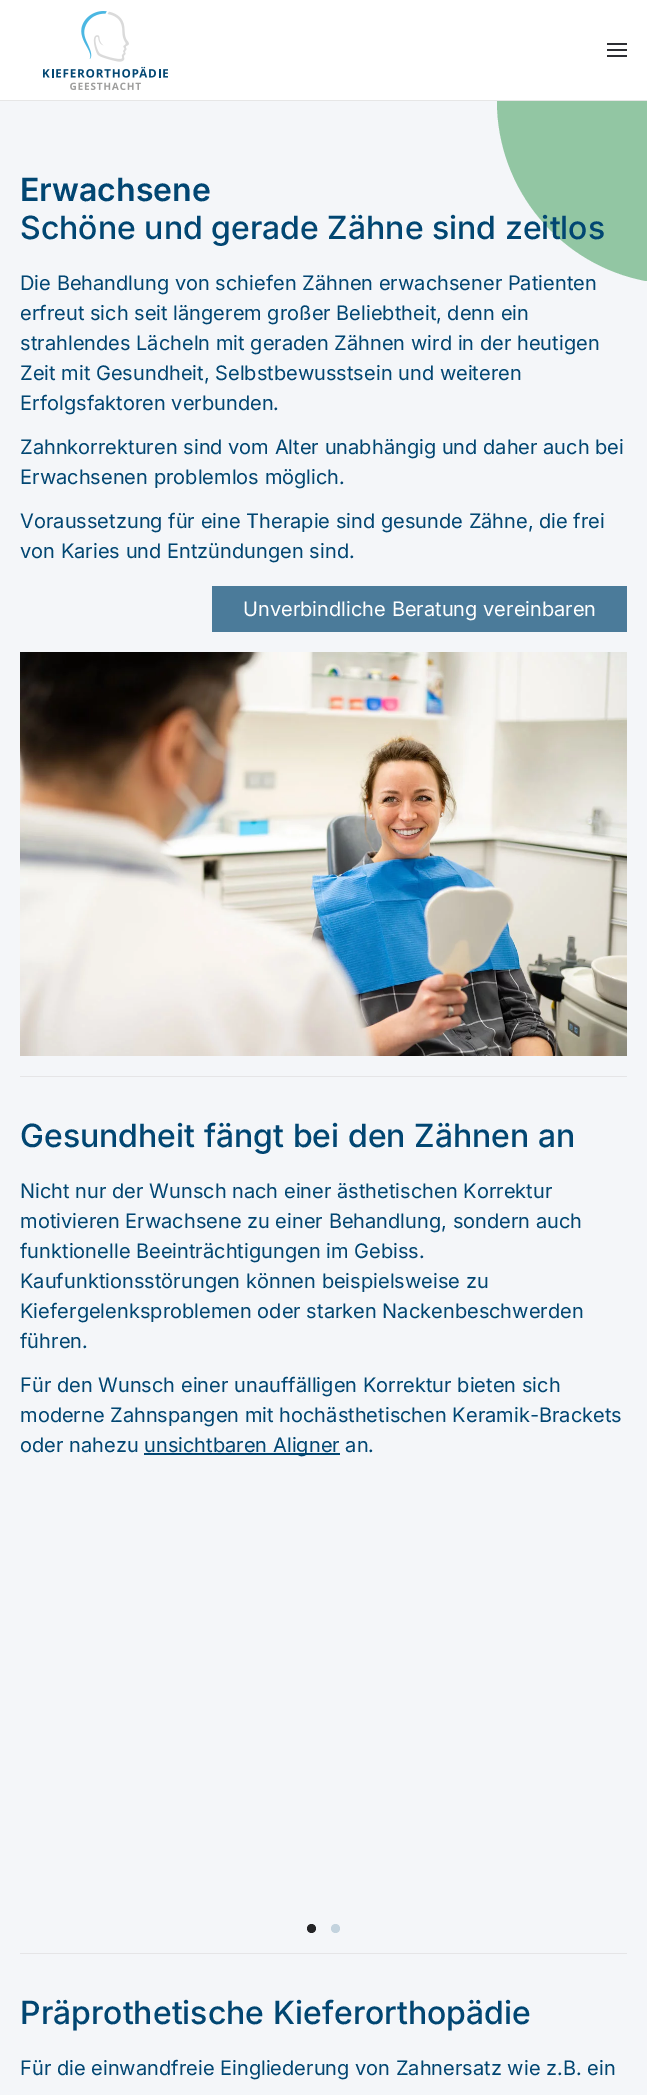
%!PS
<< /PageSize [647 2095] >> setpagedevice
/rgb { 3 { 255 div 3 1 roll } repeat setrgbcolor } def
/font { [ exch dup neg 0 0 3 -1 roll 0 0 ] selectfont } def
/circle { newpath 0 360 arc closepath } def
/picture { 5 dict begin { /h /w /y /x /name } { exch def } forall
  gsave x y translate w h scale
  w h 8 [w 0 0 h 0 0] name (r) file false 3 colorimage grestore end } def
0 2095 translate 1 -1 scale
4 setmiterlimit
255 255 255 rgb
0 0 647 2095 rectfill
230 230 230 rgb
0 100 647 1 rectfill
(img/1.rgb) 43 11 125 79 picture
[
  [607 43 20 2 45 46 51]
  [607 49 20 2 45 46 51]
  [607 55 20 2 45 46 51]
  [0 101 647 1994 244 246 249]
] { aload pop rgb rectfill } forall
146 198 163 rgb
647 281 moveto 647 101 lineto 497 101 lineto 497 190 561 265 646 281 curveto closepath fill
75 123 154 rgb
212 586 415 46 rectfill
(img/2.rgb) 20 652 607 404 picture
229 229 231 rgb
20 1076 607 1 rectfill
1 70 114 rgb
144 1453 196 2 rectfill
36 36 39 rgb
311.5 1928.5 4.5 circle fill
195 211 222 rgb
335.5 1928.5 4.5 circle fill
229 229 231 rgb
20 1953 607 1 rectfill
/Inter-SemiBold 32 font
1 70 114 rgb
20 201 moveto (Erwachsene) show
/Inter-Medium 32 font
20 239 moveto (Schöne und gerade Zähne sind zeitlos) show
/Inter-Regular 20 font
[
  [(Die Behandlung von schiefen Zähnen erwachsener Patienten) 20 290]
  [(erfreut sich seit längerem großer Beliebtheit, denn ein) 20 320]
  [(strahlendes Lächeln mit geraden Zähnen wird in der heutigen) 20 350]
  [(Zeit mit Gesundheit, Selbstbewusstsein und weiteren) 20 380]
  [(Erfolgsfaktoren verbunden.) 20 410]
  [(Zahnkorrekturen sind vom Alter unabhängig und daher auch bei) 20 454]
  [(Erwachsenen problemlos möglich.) 20 484]
  [(Voraussetzung für eine Therapie sind gesunde Zähne, die frei) 20 528]
  [(von Karies und Entzündungen sind.) 20 558]
] { aload pop moveto show } forall
255 255 255 rgb
243 616 moveto (Unverbindliche Beratung vereinbaren) show
/Inter-Medium 32 font
1 70 114 rgb
20 1147 moveto (Gesundheit fängt bei den Zähnen an) show
/Inter-Regular 20 font
[
  [(Nicht nur der Wunsch nach einer ästhetischen Korrektur) 20 1198]
  [(motivieren Erwachsene zu einer Behandlung, sondern auch) 20 1228]
  [(funktionelle Beeinträchtigungen im Gebiss.) 20 1258]
  [(Kaufunktionsstörungen können beispielsweise zu) 20 1288]
  [(Kiefergelenksproblemen oder starken Nackenbeschwerden) 20 1318]
  [(führen.) 20 1348]
  [(Für den Wunsch einer unauffälligen Korrektur bieten sich) 20 1392]
  [(moderne Zahnspangen mit hochästhetischen Keramik-Brackets) 20 1422]
  [(oder nahezu) 20 1452]
  [(unsichtbaren Aligner an.) 144 1452]
] { aload pop moveto show } forall
/Inter-Medium 32 font
20 2024 moveto (Präprothetische Kieferorthopädie) show
/Inter-Regular 20 font
20 2075 moveto (Für die einwandfreie Eingliederung von Zahnersatz wie z.B. ein) show
showpage
